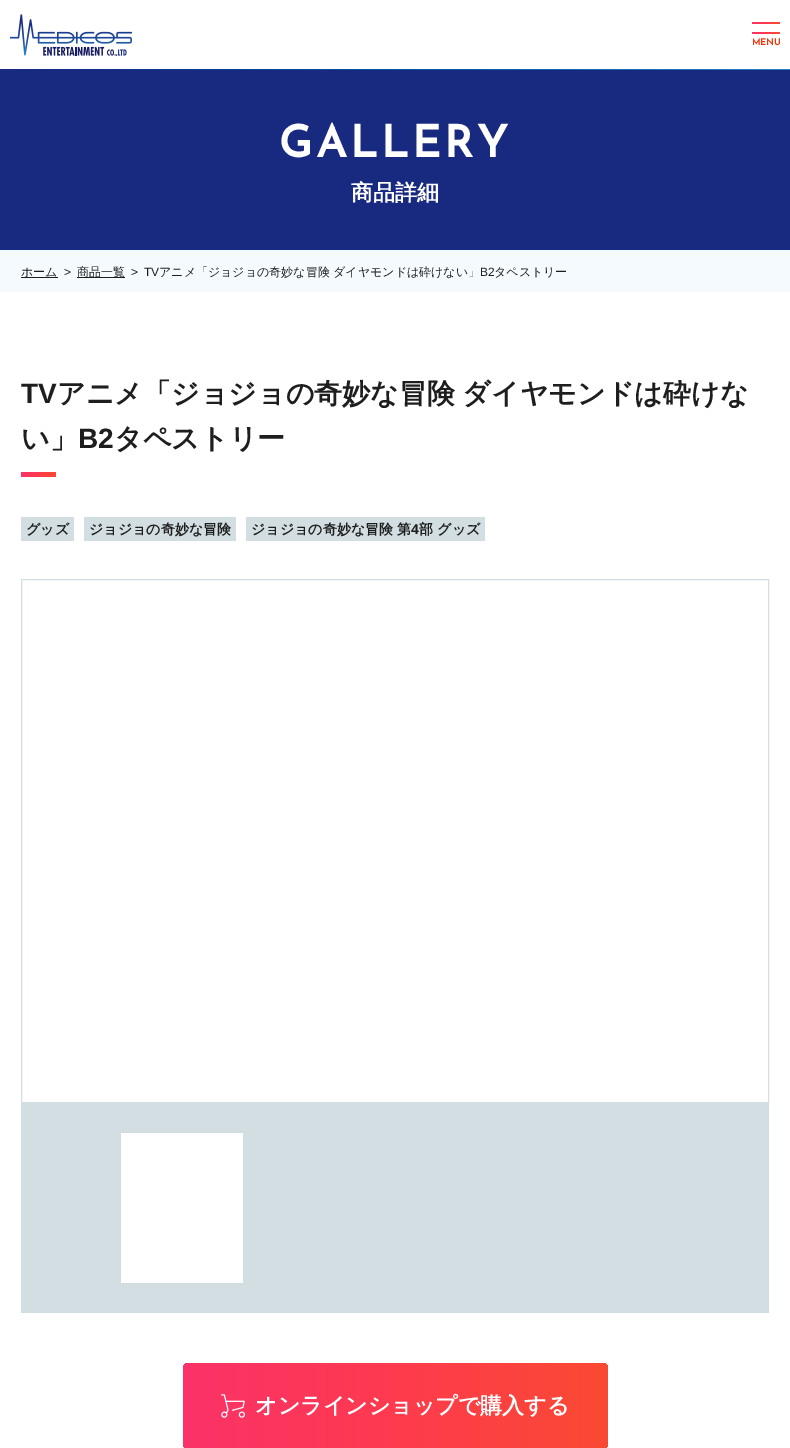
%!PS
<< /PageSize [790 1448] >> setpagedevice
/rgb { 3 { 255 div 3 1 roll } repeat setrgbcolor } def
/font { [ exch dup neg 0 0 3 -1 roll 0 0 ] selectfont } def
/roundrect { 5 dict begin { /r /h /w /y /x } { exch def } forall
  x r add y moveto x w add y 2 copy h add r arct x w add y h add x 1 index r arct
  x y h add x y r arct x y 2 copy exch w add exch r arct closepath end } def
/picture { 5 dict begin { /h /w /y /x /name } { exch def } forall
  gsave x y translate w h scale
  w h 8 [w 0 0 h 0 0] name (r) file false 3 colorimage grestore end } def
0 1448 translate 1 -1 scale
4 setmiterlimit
255 255 255 rgb
0 0 790 1448 rectfill
(img/1.rgb) 10 14 122 42 picture
gsave 752 22 moveto 780 22 lineto 780 24 lineto 752 24 lineto closepath clip newpath
<< /ShadingType 2 /ColorSpace /DeviceRGB /Coords [752 23 780 23] /Extend [true true] /Function << /FunctionType 3 /Domain [0 1] /Functions [<< /FunctionType 2 /Domain [0 1] /C0 [0.98 0.196 0.408] /C1 [0.984 0.204 0.38] /N 1 >> << /FunctionType 2 /Domain [0 1] /C0 [0.984 0.204 0.38] /C1 [0.988 0.212 0.349] /N 1 >> << /FunctionType 2 /Domain [0 1] /C0 [0.988 0.212 0.349] /C1 [0.992 0.224 0.322] /N 1 >> << /FunctionType 2 /Domain [0 1] /C0 [0.992 0.224 0.322] /C1 [0.992 0.239 0.29] /N 1 >> << /FunctionType 2 /Domain [0 1] /C0 [0.992 0.239 0.29] /C1 [0.988 0.255 0.259] /N 1 >> << /FunctionType 2 /Domain [0 1] /C0 [0.988 0.255 0.259] /C1 [0.984 0.271 0.227] /N 1 >> << /FunctionType 2 /Domain [0 1] /C0 [0.984 0.271 0.227] /C1 [0.98 0.29 0.196] /N 1 >>] /Bounds [0.14 0.29 0.43 0.57 0.71 0.86] /Encode [0 1 0 1 0 1 0 1 0 1 0 1 0 1] >> >> shfill grestore
gsave 752 32 moveto 780 32 lineto 780 34 lineto 752 34 lineto closepath clip newpath
<< /ShadingType 2 /ColorSpace /DeviceRGB /Coords [752 33 780 33] /Extend [true true] /Function << /FunctionType 3 /Domain [0 1] /Functions [<< /FunctionType 2 /Domain [0 1] /C0 [0.98 0.196 0.408] /C1 [0.984 0.204 0.38] /N 1 >> << /FunctionType 2 /Domain [0 1] /C0 [0.984 0.204 0.38] /C1 [0.988 0.212 0.349] /N 1 >> << /FunctionType 2 /Domain [0 1] /C0 [0.988 0.212 0.349] /C1 [0.992 0.224 0.322] /N 1 >> << /FunctionType 2 /Domain [0 1] /C0 [0.992 0.224 0.322] /C1 [0.992 0.239 0.29] /N 1 >> << /FunctionType 2 /Domain [0 1] /C0 [0.992 0.239 0.29] /C1 [0.988 0.255 0.259] /N 1 >> << /FunctionType 2 /Domain [0 1] /C0 [0.988 0.255 0.259] /C1 [0.984 0.271 0.227] /N 1 >> << /FunctionType 2 /Domain [0 1] /C0 [0.984 0.271 0.227] /C1 [0.98 0.29 0.196] /N 1 >>] /Bounds [0.14 0.29 0.43 0.57 0.71 0.86] /Encode [0 1 0 1 0 1 0 1 0 1 0 1 0 1] >> >> shfill grestore
gsave 0 69 moveto 790 69 lineto 790 70 lineto 0 70 lineto closepath clip newpath
<< /ShadingType 2 /ColorSpace /DeviceRGB /Coords [0 70 790 69] /Extend [true true] /Function << /FunctionType 3 /Domain [0 1] /Functions [<< /FunctionType 2 /Domain [0 1] /C0 [0.094 0.161 0.502] /C1 [0.067 0.212 0.545] /N 1 >> << /FunctionType 2 /Domain [0 1] /C0 [0.067 0.212 0.545] /C1 [0.035 0.263 0.588] /N 1 >> << /FunctionType 2 /Domain [0 1] /C0 [0.035 0.263 0.588] /C1 [0.016 0.314 0.627] /N 1 >> << /FunctionType 2 /Domain [0 1] /C0 [0.016 0.314 0.627] /C1 [0.02 0.365 0.663] /N 1 >> << /FunctionType 2 /Domain [0 1] /C0 [0.02 0.365 0.663] /C1 [0.059 0.412 0.694] /N 1 >> << /FunctionType 2 /Domain [0 1] /C0 [0.059 0.412 0.694] /C1 [0.106 0.463 0.725] /N 1 >> << /FunctionType 2 /Domain [0 1] /C0 [0.106 0.463 0.725] /C1 [0.161 0.51 0.757] /N 1 >>] /Bounds [0.14 0.29 0.43 0.57 0.71 0.86] /Encode [0 1 0 1 0 1 0 1 0 1 0 1 0 1] >> >> shfill grestore
[
  [0 70 790 180 24 41 128]
  [0 250 790 42 245 250 255]
  [21 277 37 1 30 30 30]
  [77 277 48 1 30 30 30]
] { aload pop rgb rectfill } forall
gsave 21 472 moveto 56 472 lineto 56 477 lineto 21 477 lineto closepath clip newpath
<< /ShadingType 2 /ColorSpace /DeviceRGB /Coords [21 475 56 475] /Extend [true true] /Function << /FunctionType 3 /Domain [0 1] /Functions [<< /FunctionType 2 /Domain [0 1] /C0 [0.98 0.196 0.408] /C1 [0.984 0.204 0.38] /N 1 >> << /FunctionType 2 /Domain [0 1] /C0 [0.984 0.204 0.38] /C1 [0.988 0.212 0.349] /N 1 >> << /FunctionType 2 /Domain [0 1] /C0 [0.988 0.212 0.349] /C1 [0.992 0.224 0.322] /N 1 >> << /FunctionType 2 /Domain [0 1] /C0 [0.992 0.224 0.322] /C1 [0.992 0.239 0.29] /N 1 >> << /FunctionType 2 /Domain [0 1] /C0 [0.992 0.239 0.29] /C1 [0.988 0.255 0.259] /N 1 >> << /FunctionType 2 /Domain [0 1] /C0 [0.988 0.255 0.259] /C1 [0.984 0.271 0.227] /N 1 >> << /FunctionType 2 /Domain [0 1] /C0 [0.984 0.271 0.227] /C1 [0.98 0.29 0.196] /N 1 >>] /Bounds [0.14 0.29 0.43 0.57 0.71 0.86] /Encode [0 1 0 1 0 1 0 1 0 1 0 1 0 1] >> >> shfill grestore
[
  [21 517 53 24 211 222 226]
  [84 517 152 24 211 222 226]
  [246 517 239 24 211 222 226]
] { aload pop rgb rectfill } forall
21.5 579.5 747 523 rectstroke
21 1103 748 210 rectfill
255 255 255 rgb
121 1133 122 150 rectfill
gsave 183 1363 425 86 6 roundrect clip newpath
<< /ShadingType 2 /ColorSpace /DeviceRGB /Coords [183 1406 608 1406] /Extend [true true] /Function << /FunctionType 3 /Domain [0 1] /Functions [<< /FunctionType 2 /Domain [0 1] /C0 [0.98 0.196 0.408] /C1 [0.984 0.204 0.38] /N 1 >> << /FunctionType 2 /Domain [0 1] /C0 [0.984 0.204 0.38] /C1 [0.988 0.212 0.349] /N 1 >> << /FunctionType 2 /Domain [0 1] /C0 [0.988 0.212 0.349] /C1 [0.992 0.224 0.322] /N 1 >> << /FunctionType 2 /Domain [0 1] /C0 [0.992 0.224 0.322] /C1 [0.992 0.239 0.29] /N 1 >> << /FunctionType 2 /Domain [0 1] /C0 [0.992 0.239 0.29] /C1 [0.988 0.255 0.259] /N 1 >> << /FunctionType 2 /Domain [0 1] /C0 [0.988 0.255 0.259] /C1 [0.984 0.271 0.227] /N 1 >> << /FunctionType 2 /Domain [0 1] /C0 [0.984 0.271 0.227] /C1 [0.98 0.29 0.196] /N 1 >>] /Bounds [0.14 0.29 0.43 0.57 0.71 0.86] /Encode [0 1 0 1 0 1 0 1 0 1 0 1 0 1] >> >> shfill grestore
(img/2.rgb) 221 1394 24 24 picture
/JosefinSans-Bold 9 font
239 53 10 rgb
752 45 moveto (MENU) show
/JosefinSans-Bold 44 font
255 255 255 rgb
279 157 moveto 3.5 0 (GALLERY) ashow
/WenQuanYiZenHei-Bold 22 font
351 200 moveto (商品詳細) show
/WenQuanYiZenHei-Medium 12 font
30 30 30 rgb
21 276 moveto (ホーム) show
/LiberationSans-Regular 12 font
64 276 moveto (>) show
/WenQuanYiZenHei-Medium 12 font
77 276 moveto (商品一覧) show
/LiberationSans-Regular 12 font
131 276 moveto (>) show
144 276 moveto (TV) show
/WenQuanYiZenHei-Medium 12 font
159 276 moveto (アニメ「ジョジョの奇妙な冒険 ダイヤモンドは砕けない」) show
/LiberationSans-Regular 12 font
480 276 moveto (B2) show
/WenQuanYiZenHei-Medium 12 font
494 276 moveto (タペストリー) show
/LiberationSans-Bold 28 font
21 403 moveto (TV) show
/WenQuanYiZenHei-Bold 28 font
57 403 moveto -1 0 32 (アニメ「ジョジョの奇妙な冒険 ダイヤモンドは砕けな) widthshow
21 448 moveto (い」) show
/LiberationSans-Bold 28 font
78 448 moveto (B2) show
/WenQuanYiZenHei-Bold 28 font
114 448 moveto (タペストリー) show
/WenQuanYiZenHei-Bold 14 font
[
  [(グッズ) 26 534]
  [(ジョジョの奇妙な冒険) 89 534]
  [(ジョジョの奇妙な冒険 第) 251 534]
] { aload pop moveto show } forall
/LiberationSans-Bold 14 font
411 534 moveto (4) show
/WenQuanYiZenHei-Bold 14 font
419 534 moveto (部 グッズ) show
/WenQuanYiZenHei-Bold 22 font
255 255 255 rgb
255 1413 moveto (オンラインショップで購入する) show
showpage
